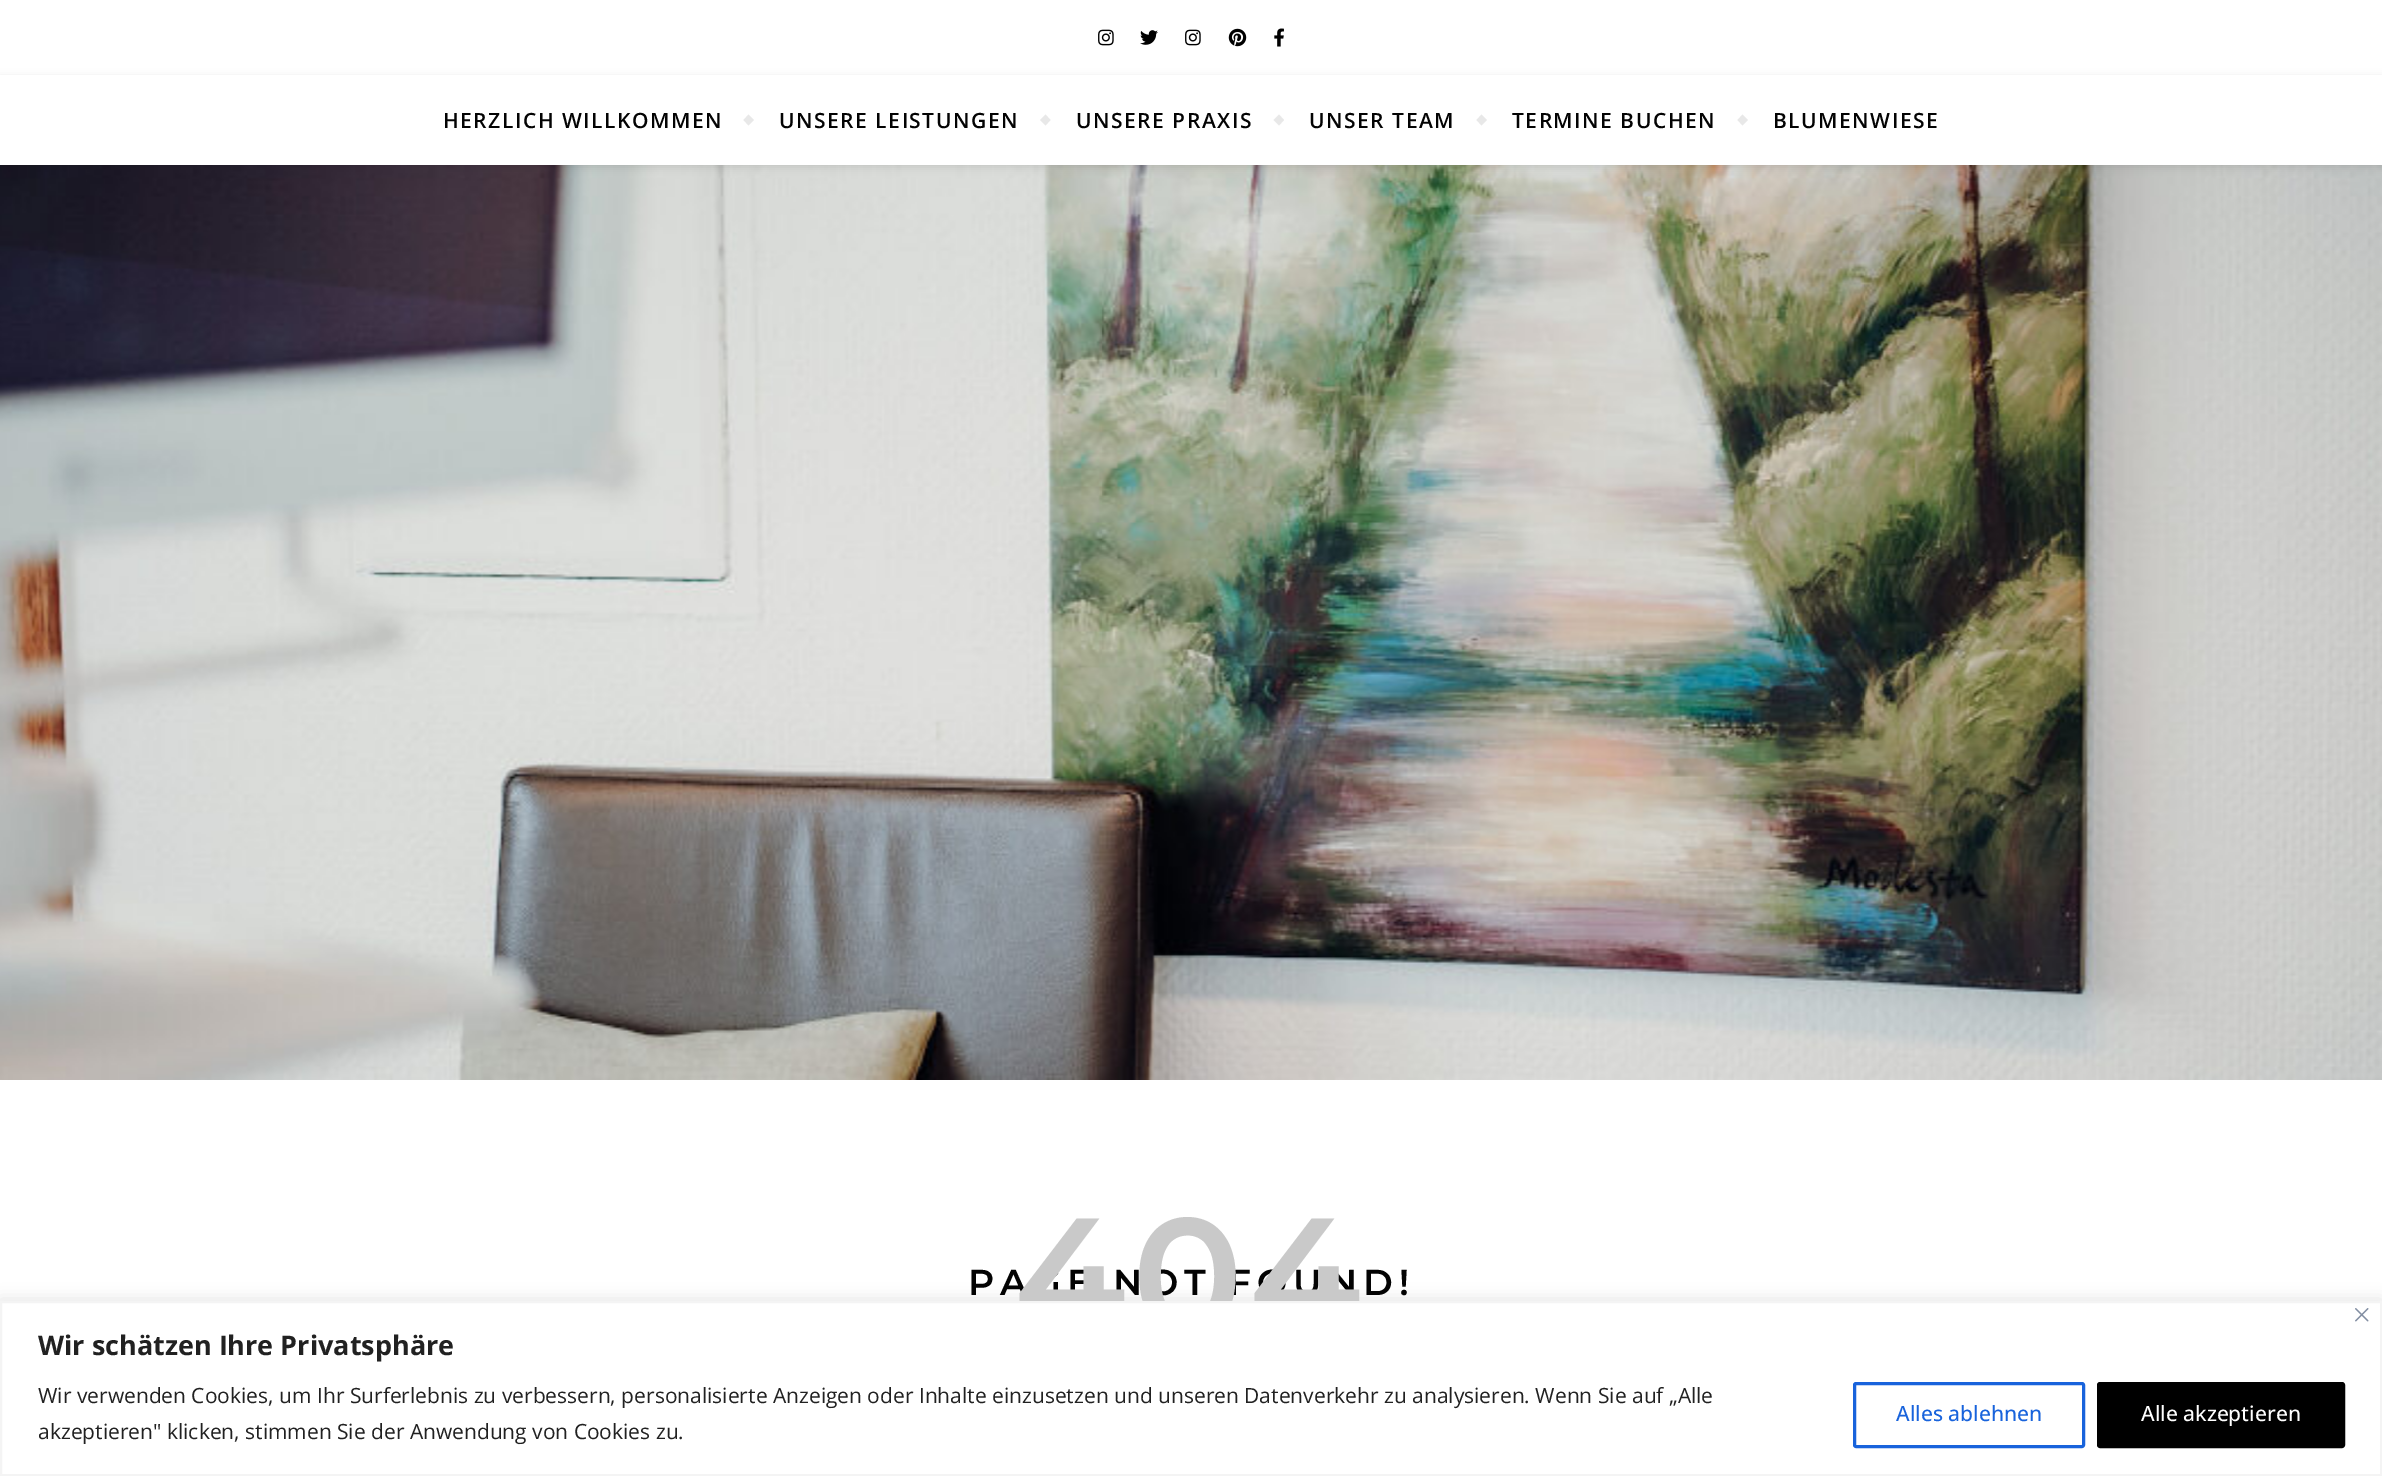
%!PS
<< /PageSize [2382 1476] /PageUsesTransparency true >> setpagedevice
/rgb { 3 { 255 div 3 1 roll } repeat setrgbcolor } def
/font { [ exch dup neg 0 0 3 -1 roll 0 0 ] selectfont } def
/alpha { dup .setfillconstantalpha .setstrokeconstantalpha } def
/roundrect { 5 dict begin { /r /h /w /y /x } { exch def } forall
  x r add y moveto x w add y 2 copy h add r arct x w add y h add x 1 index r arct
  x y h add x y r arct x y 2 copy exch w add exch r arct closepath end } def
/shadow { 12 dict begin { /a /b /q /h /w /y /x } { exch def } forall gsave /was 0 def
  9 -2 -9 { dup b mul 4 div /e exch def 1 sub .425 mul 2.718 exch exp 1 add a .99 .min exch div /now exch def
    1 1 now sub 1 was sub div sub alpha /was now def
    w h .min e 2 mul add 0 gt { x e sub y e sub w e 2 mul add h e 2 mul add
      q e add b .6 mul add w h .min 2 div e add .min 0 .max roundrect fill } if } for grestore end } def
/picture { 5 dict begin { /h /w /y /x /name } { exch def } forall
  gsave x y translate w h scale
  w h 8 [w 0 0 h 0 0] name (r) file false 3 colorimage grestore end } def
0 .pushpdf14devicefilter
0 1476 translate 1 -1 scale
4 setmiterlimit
255 255 255 rgb
0 0 2382 1476 rectfill
(img/1.rgb) 1098 29 16 17 picture
(img/2.rgb) 1140 30 18 15 picture
(img/1.rgb) 1185 29 16 17 picture
(img/3.rgb) 1228 28 19 19 picture
(img/4.rgb) 1274 28 10 19 picture
(img/5.rgb) 0 165 2382 915 picture
0 0 0 rgb
0 77 2382 90 0 4 0.1 shadow
255 255 255 rgb
0 75 2382 90 rectfill
232 232 232 rgb
743.5 120 moveto 748.5 114.5 lineto 754 120 lineto 748.5 125.5 lineto closepath fill
1040 120 moveto 1045.5 114.5 lineto 1050.5 120 lineto 1045.5 125.5 lineto closepath fill
1273.5 120 moveto 1279 114.5 lineto 1284 120 lineto 1279 125.5 lineto closepath fill
1476.5 120 moveto 1481.5 114.5 lineto 1487 120 lineto 1481.5 125.5 lineto closepath fill
1737.5 120 moveto 1742.5 114.5 lineto 1748 120 lineto 1742.5 125.5 lineto closepath fill
172 171 171 rgb
0 1299 2382 176 0 7.5 0.3 shadow
/OpenSans-SemiBold 21 font
3 3 3 rgb
443 128 moveto 1.5 0 (HERZLICH WILLKOMMEN) ashow
779 128 moveto 1.5 0 (UNSERE LEISTUNGEN) ashow
1076 128 moveto 1.5 0 (UNSERE PRAXIS) ashow
1309 128 moveto 1.5 0 (UNSER TEAM) ashow
1512 128 moveto 1.5 0 (TERMINE BUCHEN) ashow
1773 128 moveto 1.5 0 (BLUMENWIESE) ashow
/Montserrat-SemiBold 36 font
968 1295 moveto 6 0 (PAGE NOT FOUND!) ashow
/Montserrat-SemiBold 165 font
201 201 201 rgb
1014 1334 moveto 6 0 (404) ashow
255 255 255 rgb
1 1302 moveto 2381 1302 lineto 2381 1475 lineto 1 1475 lineto closepath gsave fill grestore
244 244 244 rgb
2 setlinewidth
stroke
(img/6.rgb) 2355 1308 14 14 picture
/OpenSans-Bold 27 font
33 33 33 rgb
38 1355 moveto (Wir schätzen Ihre Privatsphäre) show
/OpenSans-Regular 21 font
38 1403 moveto (Wir verwenden Cookies, um Ihr Surferlebnis zu verbessern, personalisierte Anzeigen oder Inhalte einzusetzen und unseren Datenverkehr zu analysieren. Wenn Sie auf „Alle) show
38 1439 moveto (akzeptieren" klicken, stimmen Sie der Anwendung von Cookies zu.) show
24 99 220 rgb
3 setlinewidth
1854.5 1383.5 229 63 1.5 roundrect stroke
/OpenSans-Medium 21 font
1896 1421 moveto (Alles ablehnen) show
0 0 0 rgb
2098.5 1383.5 245 63 1.5 roundrect gsave fill grestore
stroke
255 255 255 rgb
2141 1421 moveto (Alle akzeptieren) show
.poppdf14devicefilter showpage
